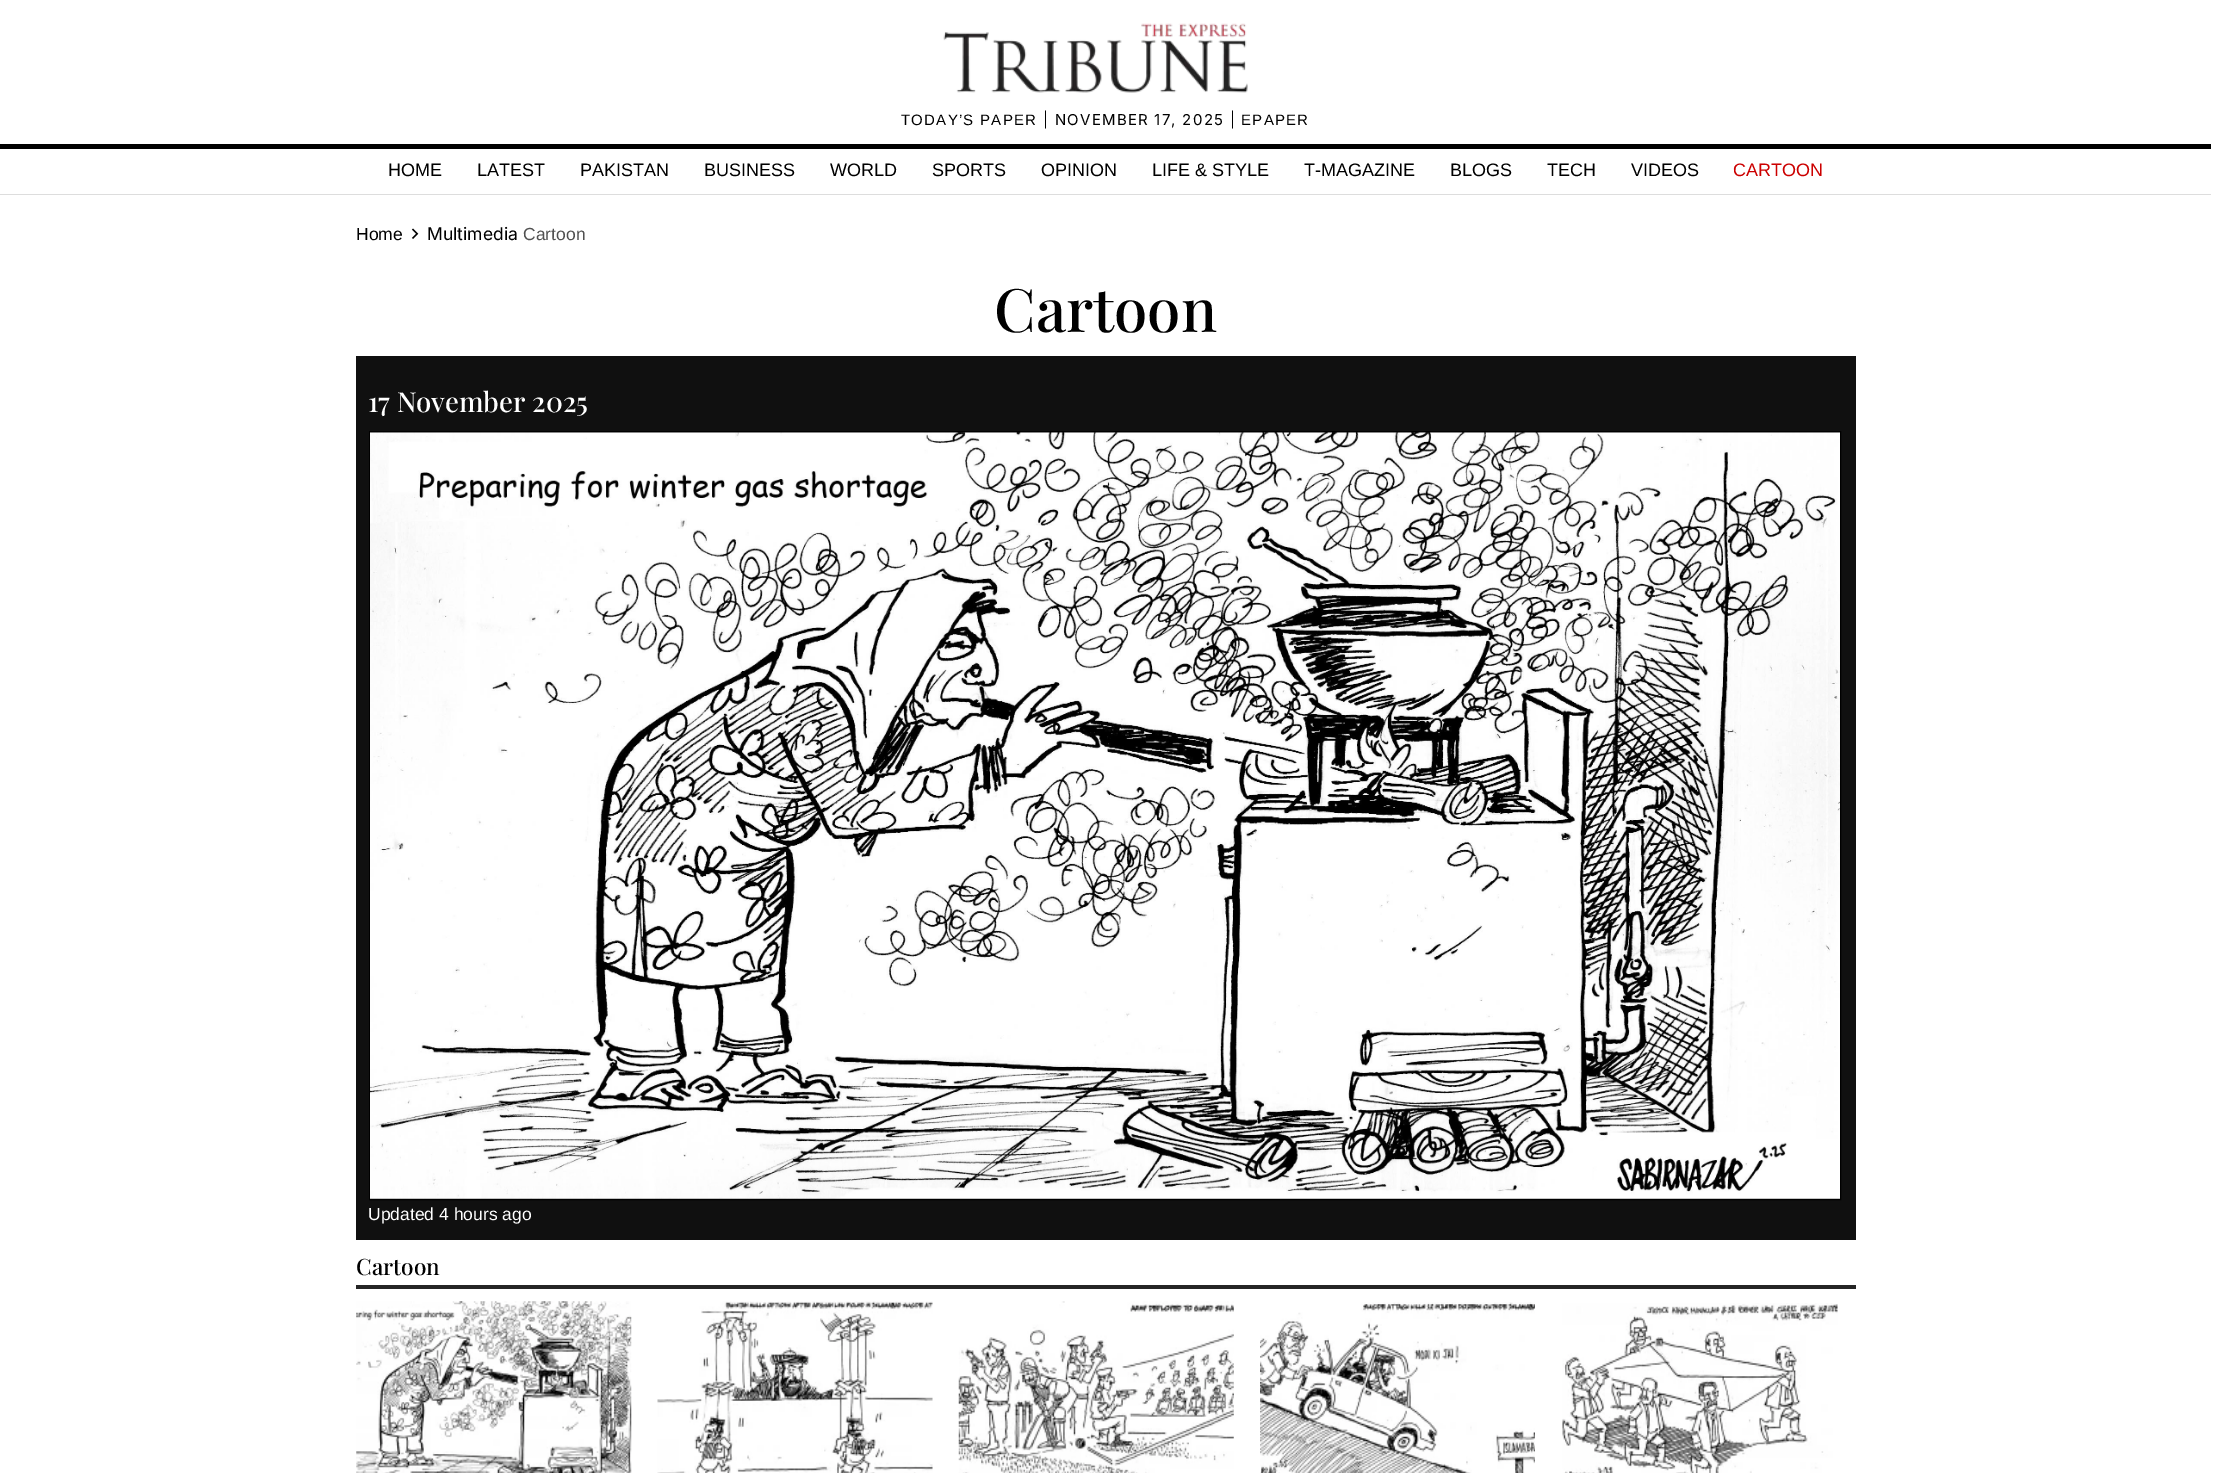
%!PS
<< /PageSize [2229 1473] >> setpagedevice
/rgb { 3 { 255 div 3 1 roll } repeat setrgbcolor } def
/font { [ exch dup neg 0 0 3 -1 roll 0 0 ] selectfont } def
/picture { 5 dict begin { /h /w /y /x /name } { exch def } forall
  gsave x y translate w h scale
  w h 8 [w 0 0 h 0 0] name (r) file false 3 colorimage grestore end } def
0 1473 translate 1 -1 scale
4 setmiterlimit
255 255 255 rgb
0 0 2229 1473 rectfill
(img/1.rgb) 943 23 305 70 picture
0 0 0 rgb
0 144 2211 5 rectfill
221 221 221 rgb
0 194 2211 1 rectfill
(img/2.rgb) 411 228 8 11 picture
16 16 16 rgb
356 356 1500 884 rectfill
0 0 0 rgb
369.5 431.5 1471 768 rectstroke
(img/3.rgb) 370 432 1470 767 picture
37 37 37 rgb
356 1285 1500 4 rectfill
(img/4.rgb) 356 1301 276 172 picture
(img/5.rgb) 657 1301 276 172 picture
(img/6.rgb) 958 1301 276 172 picture
(img/7.rgb) 1260 1302 275 171 picture
(img/8.rgb) 1562 1303 276 170 picture
/LiberationSans-Regular 15 font
0 0 0 rgb
901 125 moveto 1.25 0 (TODAY’S PAPER) ashow
/Inter-Regular 15 font
1043 125 moveto 1.25 0 (| NOVEMBER 17, 2025 |) ashow
/LiberationSans-Regular 15 font
1241 125 moveto 1.25 0 (EPAPER) ashow
/LiberationSans-Regular 18 font
[
  [(HOME) 388 176]
  [(LATEST) 477 176]
  [(PAKISTAN) 580 176]
  [(BUSINESS) 704 176]
  [(WORLD) 830 176]
  [(SPORTS) 932 176]
  [(OPINION) 1041 176]
  [(LIFE & STYLE) 1152 176]
  [(T-MAGAZINE) 1304 176]
  [(BLOGS) 1450 176]
  [(TECH) 1547 176]
  [(VIDEOS) 1631 176]
] { aload pop moveto show } forall
204 0 0 rgb
1733 176 moveto (CARTOON) show
/LiberationSans-Regular 17.5 font
0 0 0 rgb
356 240 moveto (Home) show
/Inter-Regular 17.5 font
427 240 moveto (Multimedia) show
/LiberationSans-Regular 17.5 font
81 81 81 rgb
523 240 moveto (Cartoon) show
/PlayfairDisplay-Medium 60 font
0 0 0 rgb
994 332 moveto (Cartoon) show
/PlayfairDisplay-Medium 27.5 font
255 255 255 rgb
368 412 moveto (17 November 2025) show
/LiberationSans-Regular 17.5 font
368 1220 moveto (Updated 4 hours ago) show
/PlayfairDisplay-Medium 22.5 font
0 0 0 rgb
356 1275 moveto (Cartoon) show
showpage
